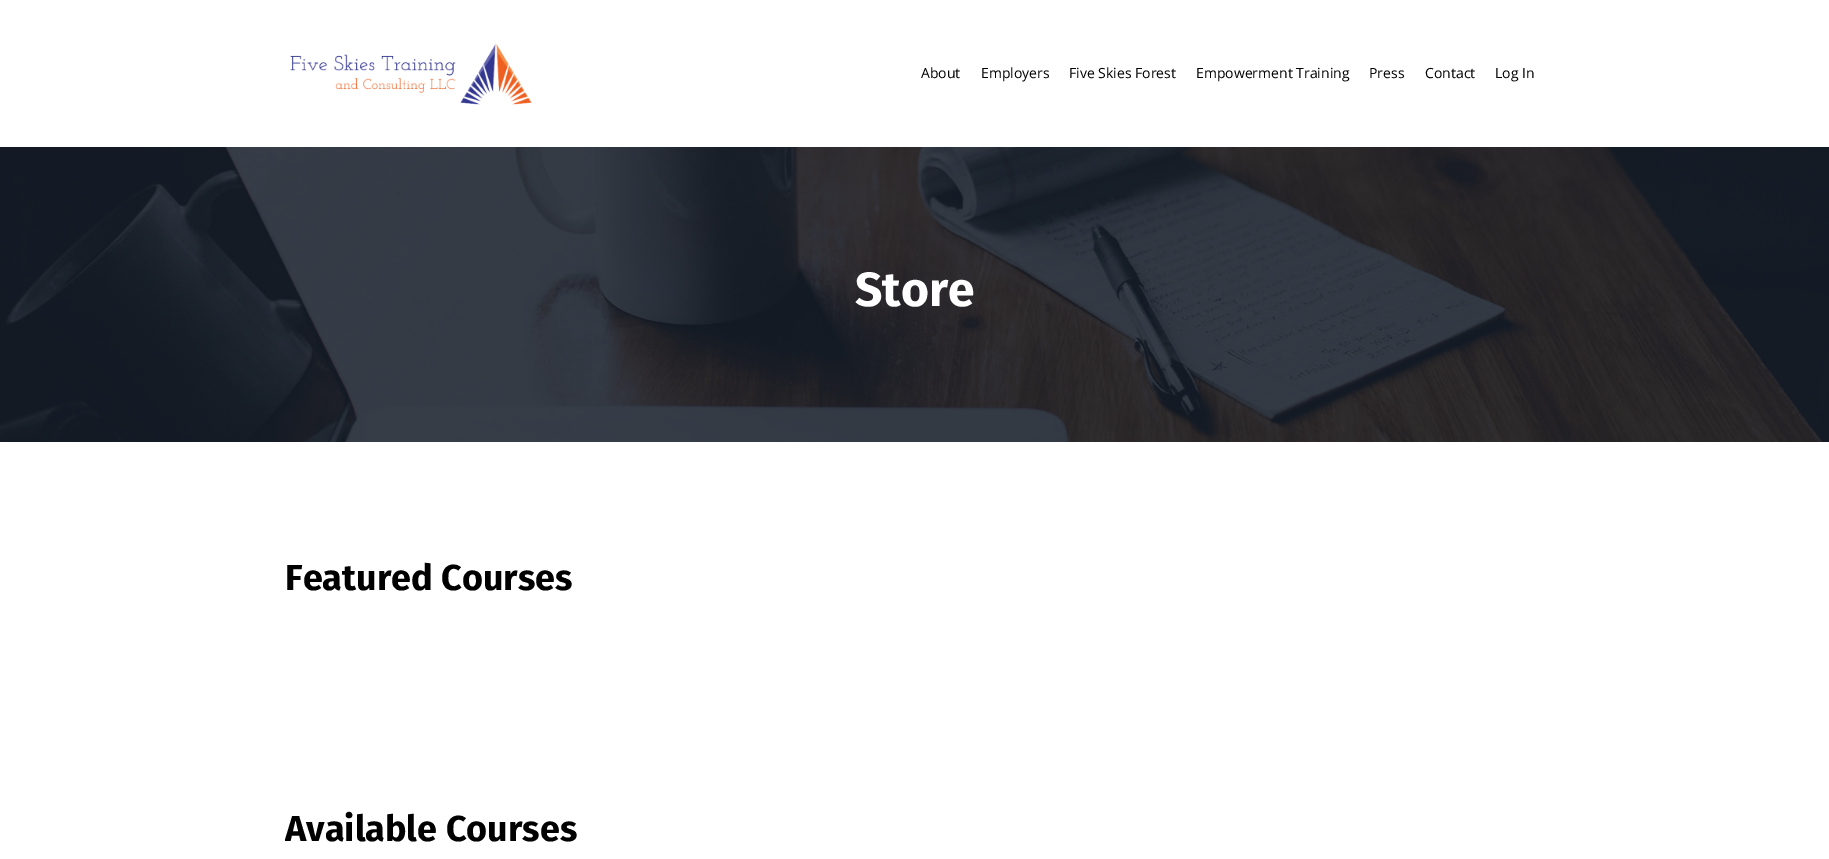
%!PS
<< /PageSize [1829 859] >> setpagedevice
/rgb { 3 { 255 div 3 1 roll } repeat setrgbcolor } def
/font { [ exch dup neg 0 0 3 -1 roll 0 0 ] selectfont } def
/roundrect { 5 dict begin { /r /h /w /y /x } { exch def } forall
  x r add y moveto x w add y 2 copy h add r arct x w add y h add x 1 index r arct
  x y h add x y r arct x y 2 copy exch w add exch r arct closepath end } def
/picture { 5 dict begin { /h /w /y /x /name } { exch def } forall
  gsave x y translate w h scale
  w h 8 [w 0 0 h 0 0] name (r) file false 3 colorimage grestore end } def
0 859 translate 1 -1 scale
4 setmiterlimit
255 255 255 rgb
0 0 1829 859 rectfill
(img/1.rgb) 290 44 242 61 picture
(img/2.rgb) 0 147 1829 295 picture
/OpenSans-Regular 14 font
0 0 0 rgb
[
  [(About) 921 78]
  [(Employers) 981 78]
  [(Five Skies Forest) 1069 78]
  [(Empowerment Training) 1196 78]
  [(Press) 1369 78]
  [(Contact) 1425 78]
  [(Log In) 1495 78]
] { aload pop moveto show } forall
/FiraSans-Bold 48 font
255 255 255 rgb
855 306 moveto (Store) show
/FiraSans-Bold 36 font
0 0 0 rgb
285 590 moveto (Featured Courses) show
gsave
285 808 1260 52 4 roundrect clip newpath
285 841 moveto (Available Courses) show
grestore
showpage
